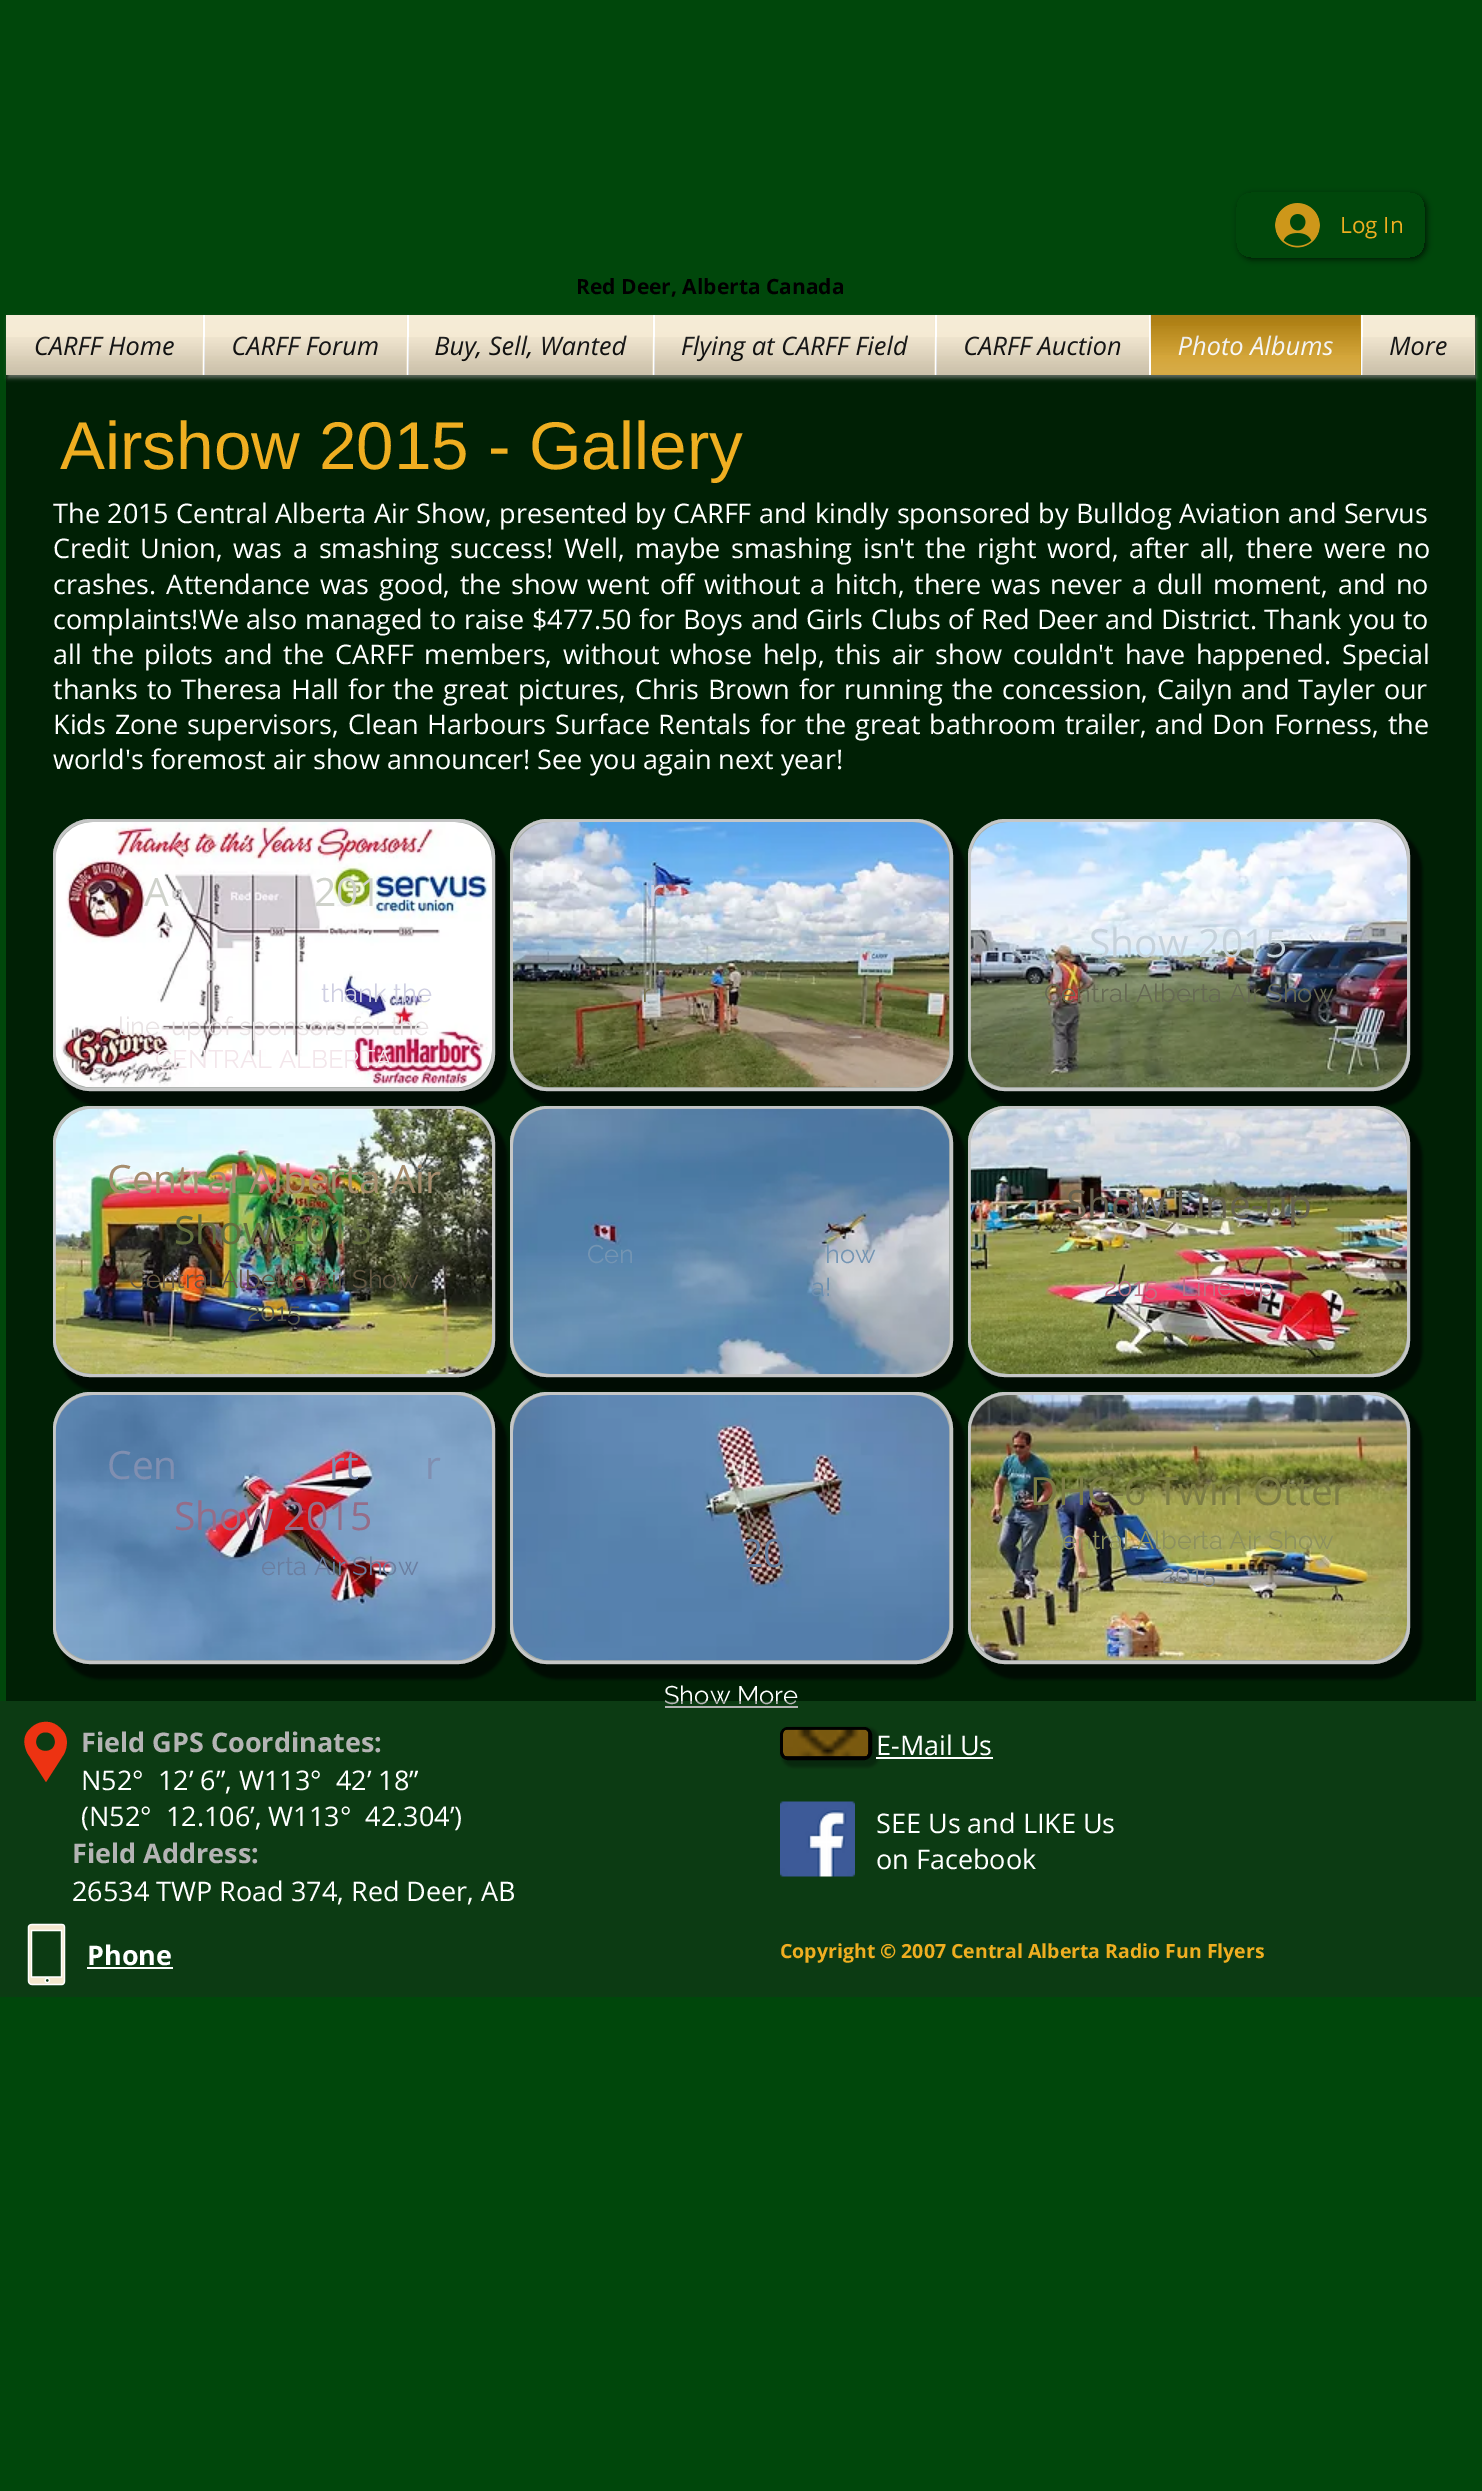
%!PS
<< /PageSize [1482 2491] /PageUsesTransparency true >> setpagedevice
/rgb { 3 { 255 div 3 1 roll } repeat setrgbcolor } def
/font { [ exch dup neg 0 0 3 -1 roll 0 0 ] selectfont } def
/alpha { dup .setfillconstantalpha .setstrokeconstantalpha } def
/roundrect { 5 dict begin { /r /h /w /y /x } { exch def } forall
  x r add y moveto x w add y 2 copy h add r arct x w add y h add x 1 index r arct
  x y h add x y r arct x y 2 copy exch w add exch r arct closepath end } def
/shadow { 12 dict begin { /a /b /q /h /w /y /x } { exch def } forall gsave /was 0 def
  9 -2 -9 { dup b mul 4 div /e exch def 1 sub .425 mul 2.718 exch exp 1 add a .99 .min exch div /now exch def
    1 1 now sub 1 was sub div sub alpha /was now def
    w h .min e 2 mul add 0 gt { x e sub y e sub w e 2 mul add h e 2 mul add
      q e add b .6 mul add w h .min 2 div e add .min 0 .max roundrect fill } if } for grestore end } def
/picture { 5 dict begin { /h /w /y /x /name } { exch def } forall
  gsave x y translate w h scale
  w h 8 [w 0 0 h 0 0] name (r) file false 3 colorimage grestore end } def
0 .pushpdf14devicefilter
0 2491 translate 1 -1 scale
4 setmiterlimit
0 71 11 rgb
0 0 1482 2491 rectfill
gsave
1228 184 moveto 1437 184 lineto 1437 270 lineto 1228 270 lineto closepath 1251 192 moveto 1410 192 lineto 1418.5 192 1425 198.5 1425 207 curveto 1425 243 lineto 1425 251.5 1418.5 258 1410 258 curveto 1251 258 lineto 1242.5 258 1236 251.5 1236 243 curveto 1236 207 lineto 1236 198.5 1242.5 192 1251 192 curveto closepath eoclip newpath
0 0 0 rgb
1238 194 189 66 15 3 0.6 shadow
grestore
(img/1.rgb) 1275 203 45 45 picture
0 32 5 rgb
6 320 1470 1381 rectfill
162 158 158 rgb
8 318 1468 60 0 2 0.6 shadow
[
  [6 315 197 60 243 231 205]
  [205 315 202 60 243 231 205]
  [203 315 2 60 255 255 255]
  [409 315 244 60 243 231 205]
  [407 315 2 60 255 255 255]
  [655 315 280 60 243 231 205]
  [653 315 2 60 255 255 255]
  [937 315 212 60 243 231 205]
  [935 315 2 60 255 255 255]
  [1151 315 210 60 205 151 26]
  [1149 315 2 60 255 255 255]
  [1363 315 112 60 243 231 205]
  [1361 315 2 60 255 255 255]
] { aload pop rgb rectfill } forall
gsave
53 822 moveto 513 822 lineto 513 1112 lineto 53 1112 lineto closepath 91 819 moveto 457 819 lineto 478 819 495 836 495 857 curveto 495 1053 lineto 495 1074 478 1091 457 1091 curveto 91 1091 lineto 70 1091 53 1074 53 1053 curveto 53 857 lineto 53 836 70 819 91 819 curveto closepath eoclip newpath
0 0 0 rgb
59 828 448 278 41 1.5 0.6 shadow
grestore
0.82 alpha
204 204 204 rgb
53 819 442 272 38 roundrect fill
3 setlinewidth
54.5 820.5 439 269 36.5 roundrect stroke
1 alpha
(img/16.rgb) 55 822 437 266 picture
gsave
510 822 moveto 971 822 lineto 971 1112 lineto 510 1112 lineto closepath 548 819 moveto 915 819 lineto 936 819 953 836 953 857 curveto 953 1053 lineto 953 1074 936 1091 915 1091 curveto 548 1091 lineto 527 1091 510 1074 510 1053 curveto 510 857 lineto 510 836 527 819 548 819 curveto closepath eoclip newpath
0 0 0 rgb
516 828 449 278 41 1.5 0.6 shadow
grestore
0.82 alpha
510 819 443 272 38 roundrect fill
511.5 820.5 440 269 36.5 roundrect stroke
1 alpha
(img/17.rgb) 513 822 437 266 picture
gsave
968 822 moveto 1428 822 lineto 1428 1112 lineto 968 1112 lineto closepath 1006 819 moveto 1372 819 lineto 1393 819 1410 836 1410 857 curveto 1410 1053 lineto 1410 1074 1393 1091 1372 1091 curveto 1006 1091 lineto 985 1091 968 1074 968 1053 curveto 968 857 lineto 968 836 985 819 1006 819 curveto closepath eoclip newpath
0 0 0 rgb
974 828 448 278 41 1.5 0.6 shadow
grestore
0.82 alpha
968 819 442 272 38 roundrect fill
969.5 820.5 439 269 36.5 roundrect stroke
1 alpha
(img/18.rgb) 970 822 437 266 picture
gsave
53 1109 moveto 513 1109 lineto 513 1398 lineto 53 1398 lineto closepath 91 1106 moveto 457 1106 lineto 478 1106 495 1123 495 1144 curveto 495 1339 lineto 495 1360 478 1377 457 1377 curveto 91 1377 lineto 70 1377 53 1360 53 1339 curveto 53 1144 lineto 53 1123 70 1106 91 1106 curveto closepath eoclip newpath
0 0 0 rgb
59 1115 448 277 41 1.5 0.6 shadow
grestore
0.82 alpha
53 1106 442 271 38 roundrect fill
54.5 1107.5 439 268 36.5 roundrect stroke
1 alpha
(img/19.rgb) 55 1108 437 266 picture
gsave
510 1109 moveto 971 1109 lineto 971 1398 lineto 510 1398 lineto closepath 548 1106 moveto 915 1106 lineto 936 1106 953 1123 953 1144 curveto 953 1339 lineto 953 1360 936 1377 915 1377 curveto 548 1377 lineto 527 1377 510 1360 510 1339 curveto 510 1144 lineto 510 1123 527 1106 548 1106 curveto closepath eoclip newpath
0 0 0 rgb
516 1115 449 277 41 1.5 0.6 shadow
grestore
0.82 alpha
510 1106 443 271 38 roundrect fill
511.5 1107.5 440 268 36.5 roundrect stroke
1 alpha
(img/20.rgb) 513 1108 437 266 picture
gsave
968 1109 moveto 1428 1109 lineto 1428 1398 lineto 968 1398 lineto closepath 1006 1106 moveto 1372 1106 lineto 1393 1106 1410 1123 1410 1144 curveto 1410 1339 lineto 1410 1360 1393 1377 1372 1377 curveto 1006 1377 lineto 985 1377 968 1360 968 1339 curveto 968 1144 lineto 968 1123 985 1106 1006 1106 curveto closepath eoclip newpath
0 0 0 rgb
974 1115 448 277 41 1.5 0.6 shadow
grestore
0.82 alpha
968 1106 442 271 38 roundrect fill
969.5 1107.5 439 268 36.5 roundrect stroke
1 alpha
(img/21.rgb) 970 1108 437 266 picture
gsave
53 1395 moveto 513 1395 lineto 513 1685 lineto 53 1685 lineto closepath 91 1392 moveto 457 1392 lineto 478 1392 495 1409 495 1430 curveto 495 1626 lineto 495 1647 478 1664 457 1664 curveto 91 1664 lineto 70 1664 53 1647 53 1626 curveto 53 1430 lineto 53 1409 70 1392 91 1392 curveto closepath eoclip newpath
0 0 0 rgb
59 1401 448 278 41 1.5 0.6 shadow
grestore
0.82 alpha
53 1392 442 272 38 roundrect fill
54.5 1393.5 439 269 36.5 roundrect stroke
1 alpha
(img/22.rgb) 55 1395 437 266 picture
gsave
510 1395 moveto 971 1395 lineto 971 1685 lineto 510 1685 lineto closepath 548 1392 moveto 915 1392 lineto 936 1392 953 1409 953 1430 curveto 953 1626 lineto 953 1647 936 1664 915 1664 curveto 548 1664 lineto 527 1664 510 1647 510 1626 curveto 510 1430 lineto 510 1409 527 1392 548 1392 curveto closepath eoclip newpath
0 0 0 rgb
516 1401 449 278 41 1.5 0.6 shadow
grestore
0.82 alpha
510 1392 443 272 38 roundrect fill
511.5 1393.5 440 269 36.5 roundrect stroke
1 alpha
(img/23.rgb) 513 1395 437 266 picture
gsave
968 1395 moveto 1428 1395 lineto 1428 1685 lineto 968 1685 lineto closepath 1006 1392 moveto 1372 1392 lineto 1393 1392 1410 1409 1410 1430 curveto 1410 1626 lineto 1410 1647 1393 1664 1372 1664 curveto 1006 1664 lineto 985 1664 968 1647 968 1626 curveto 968 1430 lineto 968 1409 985 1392 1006 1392 curveto closepath eoclip newpath
0 0 0 rgb
974 1401 448 278 41 1.5 0.6 shadow
grestore
0.82 alpha
968 1392 442 272 38 roundrect fill
969.5 1393.5 439 269 36.5 roundrect stroke
1 alpha
(img/24.rgb) 970 1395 437 266 picture
255 255 255 rgb
665 1706 133 2 rectfill
/OpenSans-Regular 22.5 font
239 174 33 rgb
1340 233 moveto (Log In) show
/OpenSans-Bold 21 font
0 0 0 rgb
576 294 moveto (Red Deer, Alberta Canada) show
/OpenSans-Italic 25.5 font
34 355 moveto (CARFF Home) show
(img/2.rgb) 6 315 197 41 picture
(img/3.rgb) 6 337 197 38 picture
231 355 moveto (CARFF Forum) show
(img/4.rgb) 205 315 202 41 picture
(img/5.rgb) 204 337 203 38 picture
434 355 moveto (Buy, Sell, Wanted) show
(img/6.rgb) 409 315 244 46 picture
(img/7.rgb) 408 337 245 38 picture
681 355 moveto (Flying at CARFF Field) show
(img/8.rgb) 655 315 280 46 picture
(img/9.rgb) 654 337 281 38 picture
963 355 moveto (CARFF Auction) show
(img/10.rgb) 937 315 212 41 picture
(img/11.rgb) 936 337 213 38 picture
255 255 255 rgb
1178 355 moveto (Photo Albums) show
(img/12.rgb) 1150 315 211 38 picture
(img/13.rgb) 1151 326 210 49 picture
0 0 0 rgb
1389 355 moveto (More) show
(img/14.rgb) 1363 315 111 41 picture
(img/15.rgb) 1362 337 113 38 picture
/LiberationSans-Regular 67.5 font
239 174 33 rgb
60 469 moveto (Airshow 2015 - Gallery) show
/OpenSans-Regular 27 font
255 255 255 rgb
53 523 moveto 0.5 0 32 (The 2015 Central Alberta Air Show, presented by CARFF and kindly sponsored by Bulldog Aviation and Servus) widthshow
53 558 moveto 3.75 0 32 (Credit Union, was a smashing success! Well, maybe smashing isn't the right word, after all, there were no) widthshow
53 594 moveto 2.9 0 32 (crashes. Attendance was good, the show went off without a hitch, there was never a dull moment, and no) widthshow
53 629 moveto 0.4 0 32 (complaints!We also managed to raise $477.50 for Boys and Girls Clubs of Red Deer and District. Thank you to) widthshow
53 664 moveto 3.75 0 32 (all the pilots and the CARFF members, without whose help, this air show couldn't have happened. Special) widthshow
53 699 moveto 1.8 0 32 (thanks to Theresa Hall for the great pictures, Chris Brown for running the concession, Cailyn and Tayler our) widthshow
53 734 moveto 1.75 0 32 (Kids Zone supervisors, Clean Harbours Surface Rentals for the great bathroom trailer, and Don Forness, the) widthshow
53 769 moveto (world's foremost air show announcer! See you again next year!) show
/OpenSans-Regular 39 font
207 210 203 rgb
144 906 moveto (A) show
314 906 moveto (201) show
/Raleway-Regular 25.5 font
207 207 226 rgb
321 1002 moveto (thank the) show
232 227 228 rgb
118 1035 moveto (line-up of sponsors for the) show
243 230 235 rgb
155 1068 moveto (CENTRAL ALBERTA) show
/OpenSans-Regular 39 font
207 207 226 rgb
648 906 moveto (r) show
/Raleway-Regular 25.5 font
120 114 79 rgb
642 1002 moveto (r) show
/OpenSans-Regular 39 font
198 210 219 rgb
1089 957 moveto (Show 2015) show
/Raleway-Regular 25.5 font
102 105 83 rgb
1044 1002 moveto (Central Alberta Air Show) show
/OpenSans-Regular 39 font
166 141 111 rgb
107 1193 moveto (Central Alberta Air) show
99 110 62 rgb
174 1244 moveto (Show 2015) show
/Raleway-Regular 25.5 font
99 87 67 rgb
129 1288 moveto (Central Alberta Air Show) show
90 92 81 rgb
247 1321 moveto (2015) show
116 149 179 rgb
587 1263 moveto (Cen) show
825 1263 moveto (how) show
106 143 177 rgb
811 1296 moveto (a!) show
/OpenSans-Regular 39 font
102 97 79 rgb
1066 1218 moveto (Show Line-up) show
/Raleway-Regular 25.5 font
190 114 132 rgb
1104 1296 moveto (2015 - Line-up) show
/OpenSans-Regular 39 font
128 143 177 rgb
[
  [(Cen) 107 1479]
  [(rt) 329 1479]
  [(r) 425 1479]
] { aload pop moveto show } forall
149 109 136 rgb
174 1530 moveto (Show 2015) show
/Raleway-Regular 25.5 font
106 126 160 rgb
261 1575 moveto (erta Air Show) show
/OpenSans-Regular 39 font
97 125 159 rgb
741 1567 moveto (20) show
123 124 69 rgb
1030 1505 moveto (DHC-6 Twin Otter) show
/Raleway-Regular 25.5 font
141 144 93 rgb
1062 1549 moveto (entral Alberta Air Show) show
130 138 140 rgb
1162 1583 moveto (2015) show
255 255 255 rgb
664 1704 moveto (Show More) show
0.34 alpha
35 35 35 rgb
0 1701 1482 296 rectfill
1 alpha
237 51 18 rgb
46 1722 moveto 47 1722 55 1721 63 1731 curveto 71 1741 64 1754 64 1754 curveto 46 1782 lineto 28 1754 lineto 28 1754 20 1741 28 1731 curveto 36 1721 45 1722 46 1722 curveto closepath 55 1742 moveto 55 1729 36 1729 36 1742 curveto 36 1754 55 1754 55 1742 curveto closepath fill
/OpenSans-Bold 27 font
180 180 180 rgb
81 1752 moveto (Field GPS Coordinates:) show
/OpenSans-Regular 27 font
255 255 255 rgb
[
  [(N52°) 81 1790]
  [(12’ 6”, W113°  42’ 18”) 158 1790]
  [(\(N52°  12.106’, W113°  42.304’\)) 81 1826]
] { aload pop moveto show } forall
0 0 0 rgb
782 1728 97 39 11 1.5 0.31 shadow
781.5 1728.5 89 30 6.5 roundrect gsave fill grestore
stroke
(img/25.rgb) 783 1729 86 28 picture
255 255 255 rgb
876 1755 moveto (E-Mail Us) show
876 1757 117 2 rectfill
/OpenSans-Bold 27 font
180 180 180 rgb
72 1863 moveto (Field Address:) show
/OpenSans-Regular 27 font
255 255 255 rgb
72 1901 moveto (26534 TWP Road 374, Red Deer, AB) show
(img/26.rgb) 780 1801 75 76 picture
876 1833 moveto (SEE Us and LIKE Us) show
876 1869 moveto (on Facebook) show
(img/27.rgb) 27 1923 39 63 picture
/OpenSans-Bold 27 font
87 1965 moveto (Phone) show
87 1967 86 2 rectfill
/OpenSans-Bold 19.5 font
239 174 33 rgb
780 1958 moveto (Copyright © 2007 Central Alberta Radio Fun Flyers) show
.poppdf14devicefilter showpage
